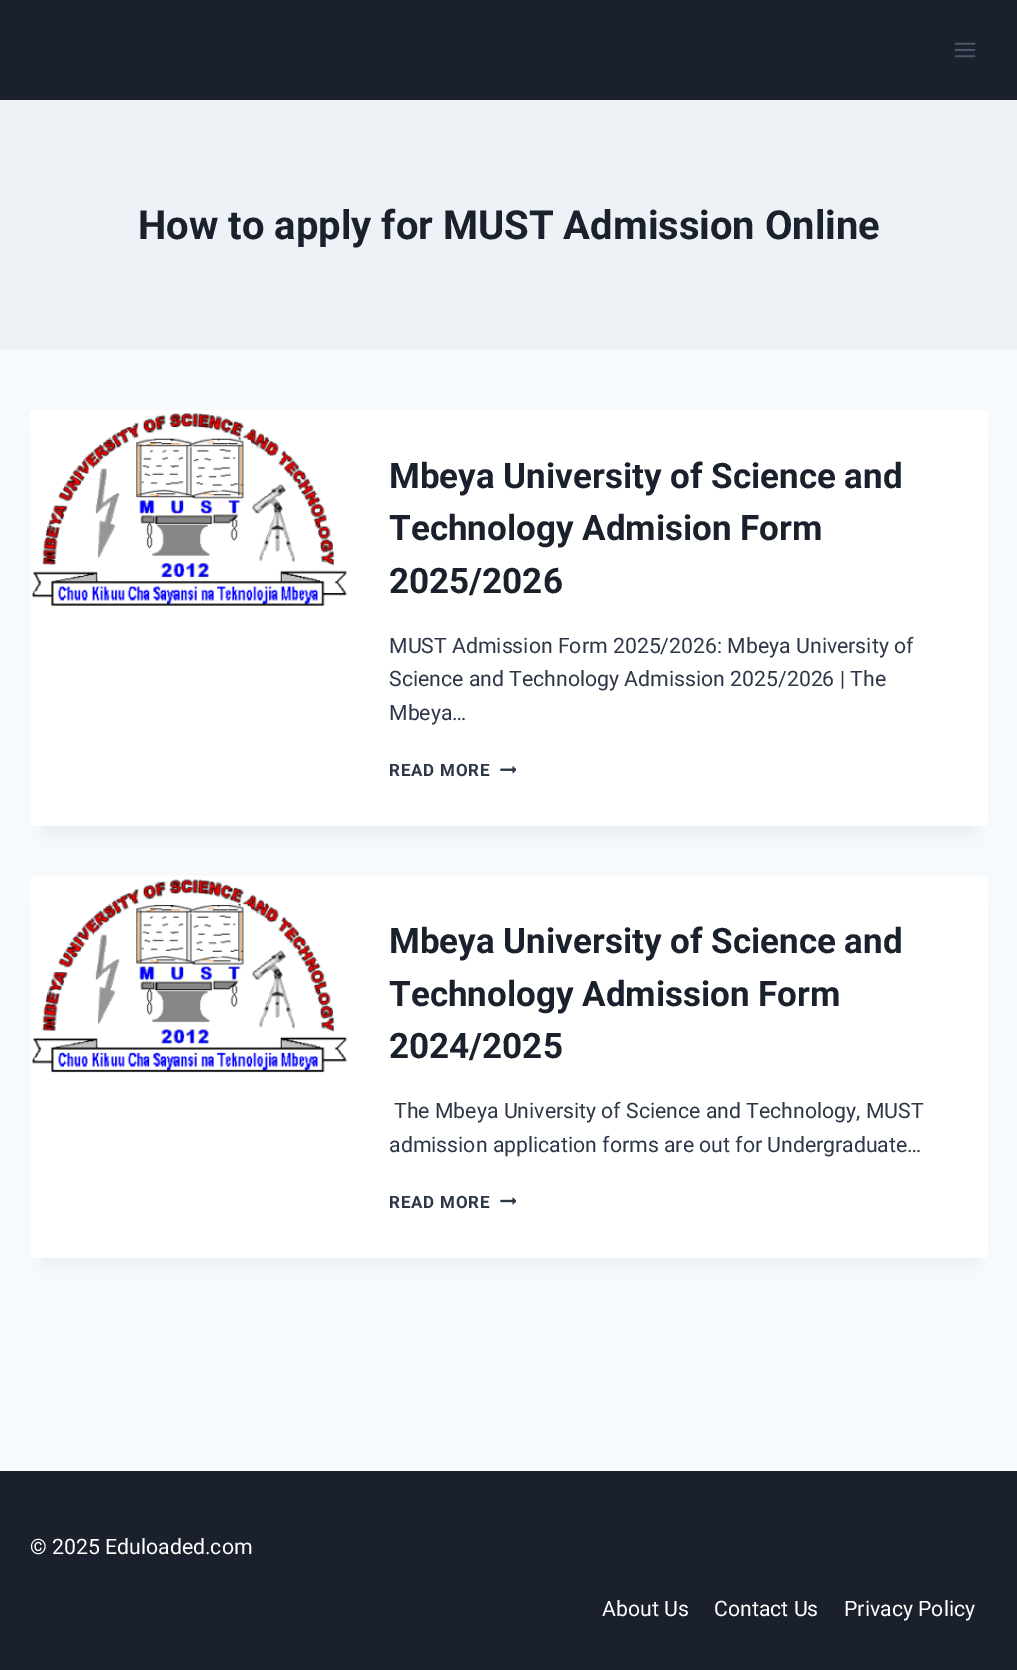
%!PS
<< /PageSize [1017 1670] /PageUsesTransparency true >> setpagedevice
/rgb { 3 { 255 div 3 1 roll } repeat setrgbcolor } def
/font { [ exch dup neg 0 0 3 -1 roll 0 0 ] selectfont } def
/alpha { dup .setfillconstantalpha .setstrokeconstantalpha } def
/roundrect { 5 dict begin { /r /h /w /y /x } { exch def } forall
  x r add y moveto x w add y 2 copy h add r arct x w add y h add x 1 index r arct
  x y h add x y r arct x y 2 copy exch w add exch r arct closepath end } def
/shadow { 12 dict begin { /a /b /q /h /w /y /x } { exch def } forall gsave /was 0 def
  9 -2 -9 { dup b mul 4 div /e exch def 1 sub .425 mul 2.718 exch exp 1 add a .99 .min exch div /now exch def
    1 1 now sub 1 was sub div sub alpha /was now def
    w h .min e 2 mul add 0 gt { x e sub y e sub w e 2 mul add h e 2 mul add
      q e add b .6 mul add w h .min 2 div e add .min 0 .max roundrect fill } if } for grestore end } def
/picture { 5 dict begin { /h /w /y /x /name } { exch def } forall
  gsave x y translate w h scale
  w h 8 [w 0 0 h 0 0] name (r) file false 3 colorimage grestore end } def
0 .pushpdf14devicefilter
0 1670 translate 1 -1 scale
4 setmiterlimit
247 250 252 rgb
0 0 1017 1670 rectfill
26 32 44 rgb
0 0 1017 100 rectfill
(img/1.rgb) 954 42 22 16 picture
237 242 247 rgb
0 100 1017 250 rectfill
0 0 0 rgb
43 441 932 392 0 9.5 0.05 shadow
255 255 255 rgb
30 410 958 416 5 roundrect fill
(img/2.rgb) 32 413 315 193 picture
(img/3.rgb) 500 766 16 8 picture
0 0 0 rgb
43 908 932 356 0 9.5 0.05 shadow
255 255 255 rgb
30 876 958 382 5 roundrect fill
(img/4.rgb) 32 879 315 194 picture
(img/5.rgb) 500 1197 16 8 picture
26 32 44 rgb
0 1471 1017 199 rectfill
/Roboto-Bold 40 font
138 239 moveto (How to apply for MUST Admission Online) show
/Roboto-Bold 35 font
[
  [(Mbeya University of Science and) 389 488]
  [(Technology Admision Form) 389 540]
  [(2025/2026) 389 593]
] { aload pop moveto show } forall
/Roboto-Regular 21.25 font
45 55 72 rgb
[
  [(MUST Admission Form 2025/2026: Mbeya University of) 389 653]
  [(Science and Technology Admission 2025/2026 | The) 389 686]
  [(Mbeya…) 389 720]
] { aload pop moveto show } forall
/Roboto-Bold 17 font
389 776 moveto 0.75 0 (READ MORE) ashow
/Roboto-Bold 35 font
26 32 44 rgb
[
  [(Mbeya University of Science and) 389 953]
  [(Technology Admission Form) 389 1006]
  [(2024/2025) 389 1058]
] { aload pop moveto show } forall
/Roboto-Regular 21.25 font
45 55 72 rgb
394 1118 moveto (The Mbeya University of Science and Technology, MUST) show
389 1152 moveto (admission application forms are out for Undergraduate…) show
/Roboto-Bold 17 font
389 1208 moveto 0.75 0 (READ MORE) ashow
/Roboto-Regular 21.25 font
255 255 255 rgb
[
  [(© 2025 Eduloaded.com) 30 1554]
  [(About Us) 602 1616]
  [(Contact Us) 714 1616]
  [(Privacy Policy) 844 1616]
] { aload pop moveto show } forall
.poppdf14devicefilter showpage
